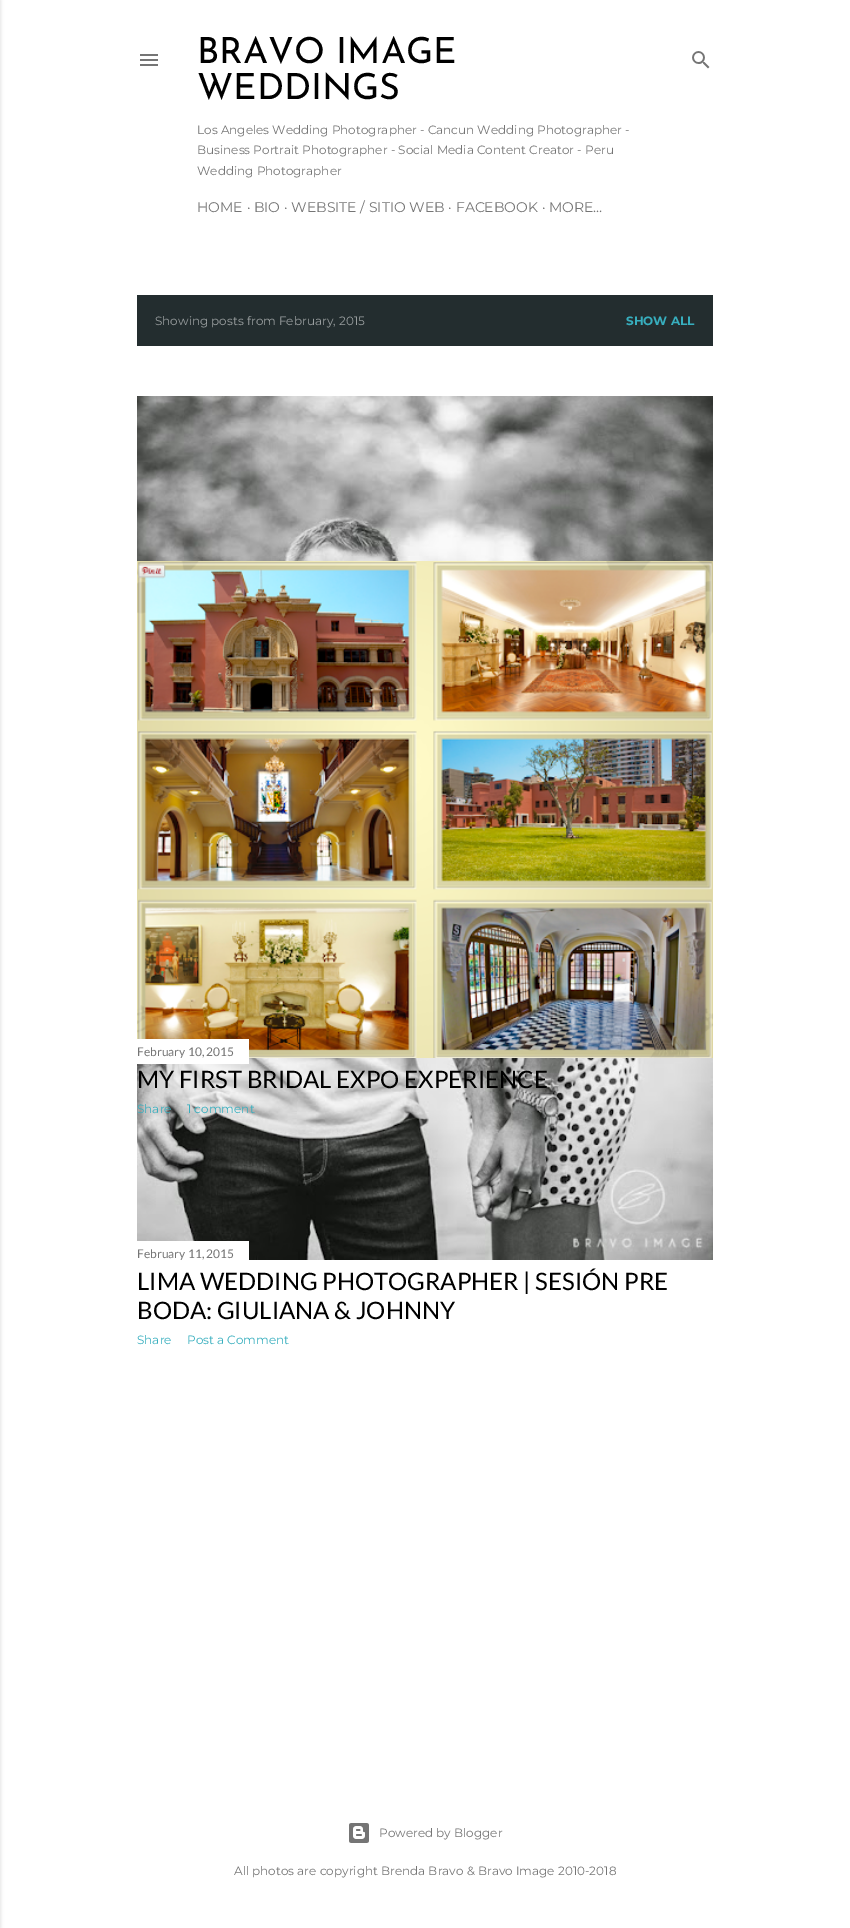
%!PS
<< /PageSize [850 1928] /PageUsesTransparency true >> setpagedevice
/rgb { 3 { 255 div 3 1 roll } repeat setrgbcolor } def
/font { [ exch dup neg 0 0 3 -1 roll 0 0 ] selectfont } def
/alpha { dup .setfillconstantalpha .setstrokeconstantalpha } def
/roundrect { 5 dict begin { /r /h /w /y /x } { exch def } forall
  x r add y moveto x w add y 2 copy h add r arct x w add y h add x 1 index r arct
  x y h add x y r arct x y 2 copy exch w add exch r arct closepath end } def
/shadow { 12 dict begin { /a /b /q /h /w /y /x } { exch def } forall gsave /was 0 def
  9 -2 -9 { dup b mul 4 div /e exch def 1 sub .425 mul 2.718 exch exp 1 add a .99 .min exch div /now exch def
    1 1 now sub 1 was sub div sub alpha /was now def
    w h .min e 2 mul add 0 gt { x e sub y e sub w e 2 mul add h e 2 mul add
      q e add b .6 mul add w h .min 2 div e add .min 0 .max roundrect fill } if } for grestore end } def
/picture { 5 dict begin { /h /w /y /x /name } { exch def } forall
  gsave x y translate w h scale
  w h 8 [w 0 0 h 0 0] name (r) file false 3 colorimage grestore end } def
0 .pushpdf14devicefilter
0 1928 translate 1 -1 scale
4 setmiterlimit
255 255 255 rgb
0 0 850 1928 rectfill
0 0 0 rgb
-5 0 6 1928 0 1.5 0.1 shadow
(img/1.rgb) 140 54 18 12 picture
(img/2.rgb) 692 51 18 18 picture
35 45 47 rgb
137 295 576 51 rectfill
(img/4.rgb) 137 396 576 864 picture
(img/3.rgb) 137 561 576 497 picture
255 255 255 rgb
137 1039 112 25 rectfill
137 1241 112 19 rectfill
(img/5.rgb) 349 1823 20 20 picture
/JosefinSans-Thin 36 font
0 0 0 rgb
197 63 moveto (BRAVO IMAGE) show
197 99 moveto (WEDDINGS) show
/Montserrat-Regular 12 font
117 117 117 rgb
[
  [(Los Angeles Wedding Photographer - Cancun Wedding Photographer -) 197 134]
  [(Business Portrait Photographer - Social Media Content Creator - Peru) 197 154]
  [(Wedding Photographer) 197 175]
] { aload pop moveto show } forall
/Montserrat-Regular 14 font
197 212 moveto (HOME · BIO · WEBSITE / SITIO WEB · FACEBOOK · MORE…) show
/Montserrat-Regular 12 font
153 158 159 rgb
155 325 moveto (Showing posts from February, 2015) show
/Montserrat-Bold 12 font
55 174 190 rgb
626 325 moveto (SHOW ALL) show
/Lato-Regular 12 font
117 117 117 rgb
137 1056 moveto (February 10, 2015) show
/Lato-Regular 24 font
0 0 0 rgb
137 1088 moveto (MY FIRST BRIDAL EXPO EXPERIENCE) show
/Montserrat-Regular 12 font
55 174 190 rgb
137 1113 moveto (Share) show
187 1113 moveto (1 comment) show
/Lato-Regular 12 font
117 117 117 rgb
137 1258 moveto (February 11, 2015) show
/Lato-Regular 24 font
0 0 0 rgb
137 1290 moveto (LIMA WEDDING PHOTOGRAPHER | SESIÓN PRE) show
137 1319 moveto (BODA: GIULIANA & JOHNNY) show
/Montserrat-Regular 12 font
55 174 190 rgb
137 1344 moveto (Share) show
187 1344 moveto (Post a Comment) show
117 117 117 rgb
379 1837 moveto (Powered by Blogger) show
234 1875 moveto (All photos are copyright Brenda Bravo & Bravo Image 2010-2018) show
.poppdf14devicefilter showpage
